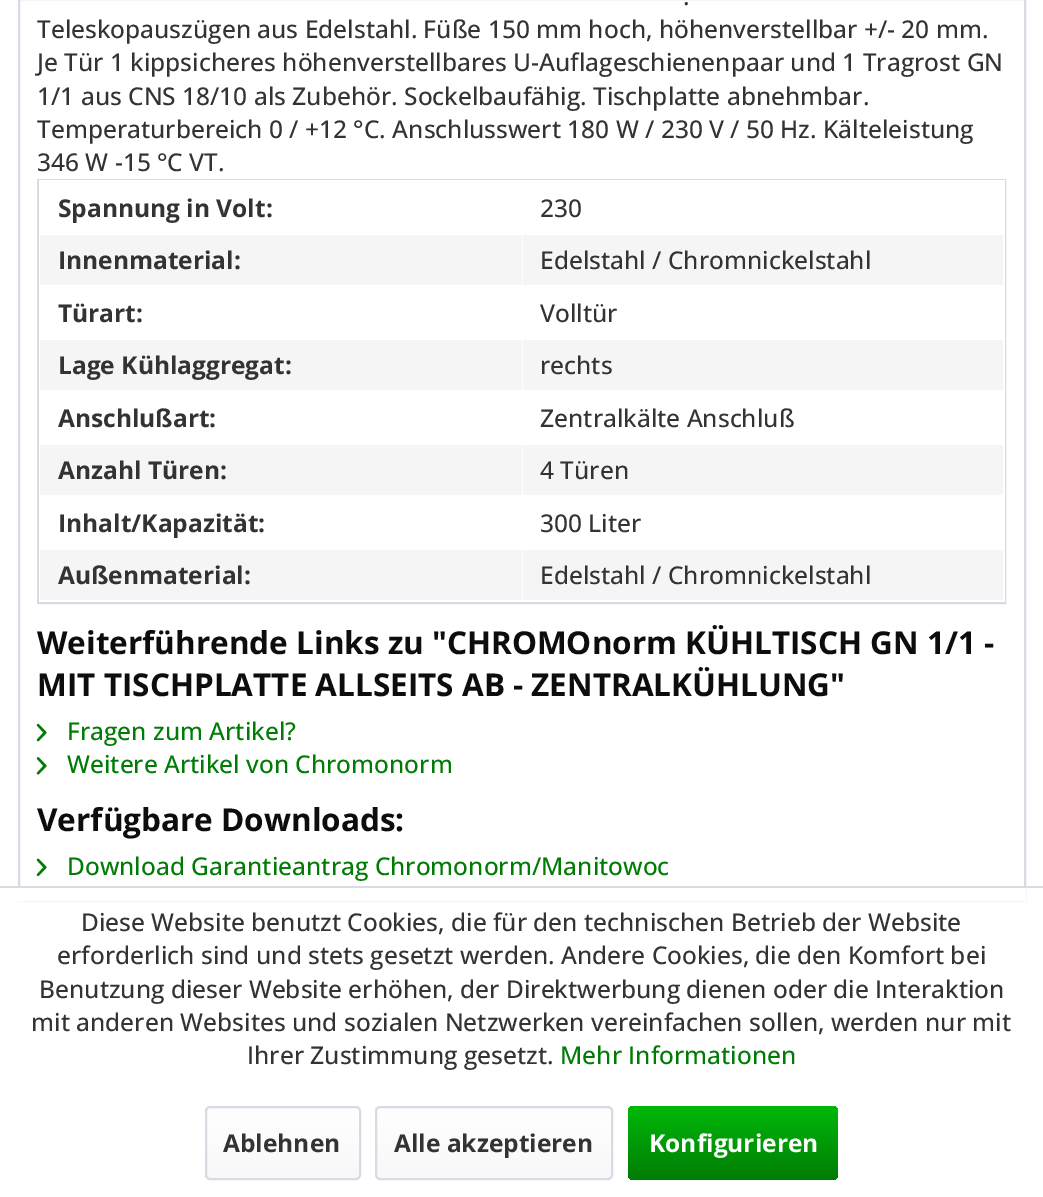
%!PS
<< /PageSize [1043 1197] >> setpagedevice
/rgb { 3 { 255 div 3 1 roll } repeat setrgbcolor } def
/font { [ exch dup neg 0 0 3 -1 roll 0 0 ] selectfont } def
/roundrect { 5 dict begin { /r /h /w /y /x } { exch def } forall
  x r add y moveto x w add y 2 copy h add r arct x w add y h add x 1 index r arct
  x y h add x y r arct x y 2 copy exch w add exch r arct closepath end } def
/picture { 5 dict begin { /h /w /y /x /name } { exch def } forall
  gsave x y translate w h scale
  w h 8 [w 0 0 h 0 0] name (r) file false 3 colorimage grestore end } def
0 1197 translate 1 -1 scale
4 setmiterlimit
255 255 255 rgb
0 0 1043 1197 rectfill
218 218 229 rgb
2 setlinewidth
19 -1 1006 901 rectstroke
38 180 967 423 rectstroke
[
  [39 180 966 422 255 255 255]
  [40 235 482 50 245 245 245]
  [523 235 480 50 245 245 245]
  [40 340 482 50 245 245 245]
  [523 340 480 50 245 245 245]
  [40 445 482 50 245 245 245]
  [523 445 480 50 245 245 245]
  [40 550 482 50 245 245 245]
  [523 550 480 50 245 245 245]
] { aload pop rgb rectfill } forall
(img/1.rgb) 36 723 11 19 picture
(img/2.rgb) 36 757 11 18 picture
(img/3.rgb) 36 858 11 19 picture
255 255 255 rgb
18 888 1008 13 rectfill
218 218 229 rgb
0 886 1043 2 rectfill
gsave 207 1108 152 70 4 roundrect clip newpath
<< /ShadingType 2 /ColorSpace /DeviceRGB /Coords [283 1108 283 1178] /Extend [true true] /Function << /FunctionType 2 /Domain [0 1] /C0 [1 1 1] /C1 [0.973 0.973 0.98] /N 1 >> >> shfill grestore
206 1107 154 72 4 roundrect stroke
gsave 376 1108 235 70 4 roundrect clip newpath
<< /ShadingType 2 /ColorSpace /DeviceRGB /Coords [494 1108 494 1178] /Extend [true true] /Function << /FunctionType 2 /Domain [0 1] /C0 [1 1 1] /C1 [0.973 0.973 0.98] /N 1 >> >> shfill grestore
376 1107 236 72 4 roundrect stroke
gsave 628 1106 210 74 5 roundrect clip newpath
<< /ShadingType 2 /ColorSpace /DeviceRGB /Coords [733 1106 733 1180] /Extend [true true] /Function << /FunctionType 2 /Domain [0 1] /C0 [0 0.725 0.035] /C1 [0 0.486 0.024] /N 1 >> >> shfill grestore
/OpenSans-Medium 24.5 font
51 51 51 rgb
[
  [(.) 683 5]
  [(Teleskopauszügen aus Edelstahl. Füße 150 mm hoch, höhenverstellbar +/- 20 mm.) 37 38]
  [(Je Tür 1 kippsicheres höhenverstellbares U-Auflageschienenpaar und 1 Tragrost GN) 37 71]
  [(1/1 aus CNS 18/10 als Zubehör. Sockelbaufähig. Tischplatte abnehmbar.) 37 105]
  [(Temperaturbereich 0 / +12 °C. Anschlusswert 180 W / 230 V / 50 Hz. Kälteleistung) 37 138]
  [(346 W -15 °C VT.) 37 171]
] { aload pop moveto show } forall
/OpenSans-Bold 24.5 font
58 217 moveto (Spannung in Volt:) show
/OpenSans-Medium 24.5 font
540 217 moveto (230) show
/OpenSans-Bold 24.5 font
58 269 moveto (Innenmaterial:) show
/OpenSans-Medium 24.5 font
540 269 moveto (Edelstahl / Chromnickelstahl) show
/OpenSans-Bold 24.5 font
58 322 moveto (Türart:) show
/OpenSans-Medium 24.5 font
540 322 moveto (Volltür) show
/OpenSans-Bold 24.5 font
58 374 moveto (Lage Kühlaggregat:) show
/OpenSans-Medium 24.5 font
540 374 moveto (rechts) show
/OpenSans-Bold 24.5 font
58 427 moveto (Anschlußart:) show
/OpenSans-Medium 24.5 font
540 427 moveto (Zentralkälte Anschluß) show
/OpenSans-Bold 24.5 font
58 479 moveto (Anzahl Türen:) show
/OpenSans-Medium 24.5 font
540 479 moveto (4 Türen) show
/OpenSans-Bold 24.5 font
58 532 moveto (Inhalt/Kapazität:) show
/OpenSans-Medium 24.5 font
540 532 moveto (300 Liter) show
/OpenSans-Bold 24.5 font
58 584 moveto (Außenmaterial:) show
/OpenSans-Medium 24.5 font
540 584 moveto (Edelstahl / Chromnickelstahl) show
/OpenSans-Bold 31.5 font
13 13 13 rgb
37 654 moveto (Weiterführende Links zu "CHROMOnorm KÜHLTISCH GN 1/1 -) show
37 696 moveto (MIT TISCHPLATTE ALLSEITS AB - ZENTRALKÜHLUNG") show
/OpenSans-Medium 24.5 font
0 124 6 rgb
67 740 moveto (Fragen zum Artikel?) show
67 773 moveto (Weitere Artikel von Chromonorm) show
/OpenSans-Bold 31.5 font
13 13 13 rgb
37 831 moveto (Verfügbare Downloads:) show
/OpenSans-Medium 24.5 font
0 124 6 rgb
67 875 moveto (Download Garantieantrag Chromonorm/Manitowoc) show
51 51 51 rgb
[
  [(Diese Website benutzt Cookies, die für den technischen Betrieb der Website) 81 931]
  [(erforderlich sind und stets gesetzt werden. Andere Cookies, die den Komfort bei) 57 964]
  [(Benutzung dieser Website erhöhen, der Direktwerbung dienen oder die Interaktion) 39 998]
  [(mit anderen Websites und sozialen Netzwerken vereinfachen sollen, werden nur mit) 31 1031]
  [(Ihrer Zustimmung gesetzt.) 247 1064]
] { aload pop moveto show } forall
0 124 6 rgb
560 1064 moveto (Mehr Informationen) show
/OpenSans-Bold 24.5 font
51 51 51 rgb
223 1152 moveto (Ablehnen) show
394 1152 moveto (Alle akzeptieren) show
255 255 255 rgb
649 1152 moveto (Konfigurieren) show
showpage
